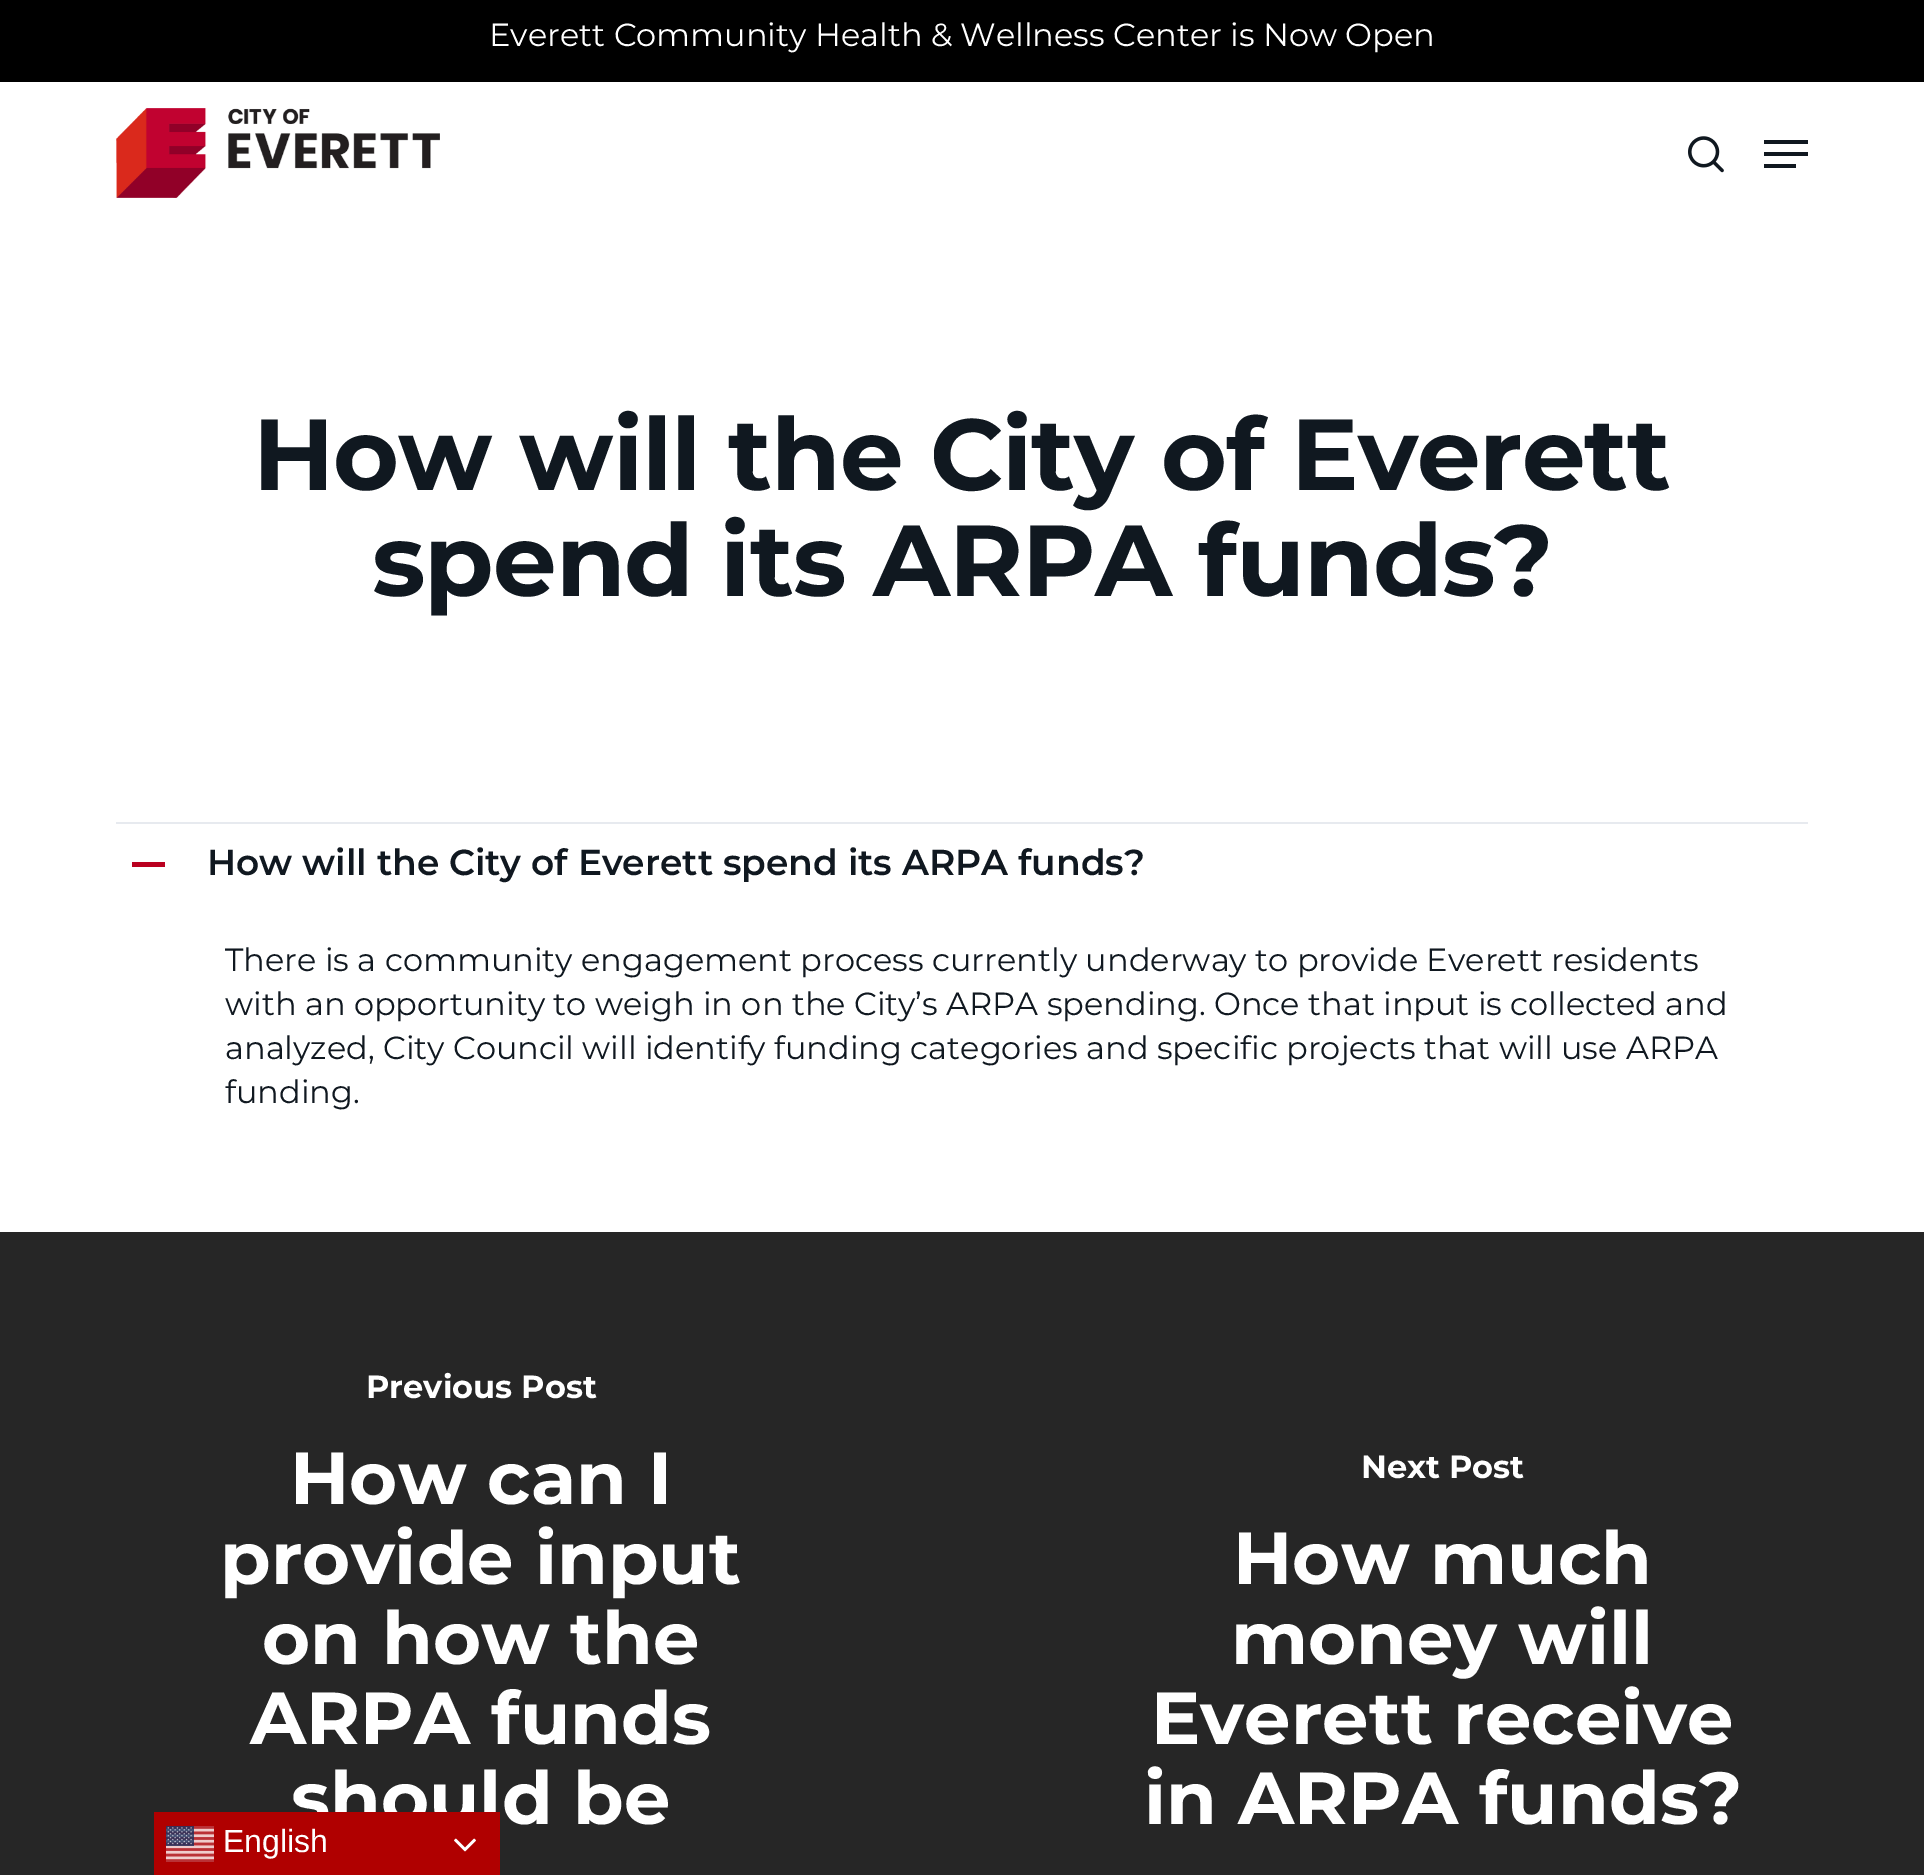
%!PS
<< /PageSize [1924 1875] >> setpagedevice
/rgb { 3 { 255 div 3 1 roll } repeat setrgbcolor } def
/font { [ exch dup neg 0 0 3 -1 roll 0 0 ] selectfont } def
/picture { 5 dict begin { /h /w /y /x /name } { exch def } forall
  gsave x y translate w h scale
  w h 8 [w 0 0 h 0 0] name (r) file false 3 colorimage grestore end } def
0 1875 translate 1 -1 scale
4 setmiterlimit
255 255 255 rgb
0 0 1924 1875 rectfill
0 0 0 rgb
0 0 1924 82 rectfill
(img/1.rgb) 116 108 324 90 picture
(img/2.rgb) 1688 136 36 37 picture
[
  [1764 140 44 4 16 24 32]
  [1764 164 32 4 16 24 32]
  [1764 152 44 4 16 24 32]
  [116 822 1692 2 231 234 239]
  [132 862 33 5 186 0 32]
  [0 1232 1924 643 38 38 38]
] { aload pop rgb rectfill } forall
/Montserrat-Regular 32 font
255 255 255 rgb
489 46 moveto (Everett Community Health & Wellness Center is Now Open) show
/Montserrat-Bold 100.75 font
16 24 32 rgb
253 490 moveto -1 0 (How will the City of Everett) ashow
372 596 moveto -1 0 (spend its ARPA funds?) ashow
/Montserrat-SemiBold 36 font
207 875 moveto (How will the City of Everett spend its ARPA funds?) show
/Montserrat-Regular 32 font
[
  [(There is a community engagement process currently underway to provide Everett residents) 225 971]
  [(with an opportunity to weigh in on the City’s ARPA spending. Once that input is collected and) 225 1015]
  [(analyzed, City Council will identify funding categories and specific projects that will use ARPA) 225 1059]
  [(funding.) 225 1103]
] { aload pop moveto show } forall
/Montserrat-Bold 32 font
255 255 255 rgb
366 1398 moveto (Previous Post) show
/Montserrat-Bold 73.5 font
[
  [(How can I) 290 1504]
  [(provide input) 220 1584]
  [(on how the) 262 1664]
  [(ARPA funds) 250 1744]
  [(should be) 291 1824]
] { aload pop moveto show } forall
/Montserrat-Bold 32 font
1361 1478 moveto (Next Post) show
/Montserrat-Bold 73.5 font
[
  [(How much) 1233 1584]
  [(money will) 1231 1664]
  [(Everett receive) 1151 1744]
  [(in ARPA funds?) 1144 1824]
] { aload pop moveto show } forall
176 0 0 rgb
154 1812 346 63 rectfill
(img/3.rgb) 166 1826 48 36 picture
/LiberationSans-Regular 32 font
255 255 255 rgb
223 1852 moveto (English) show
(img/4.rgb) 454 1838 22 14 picture
showpage
